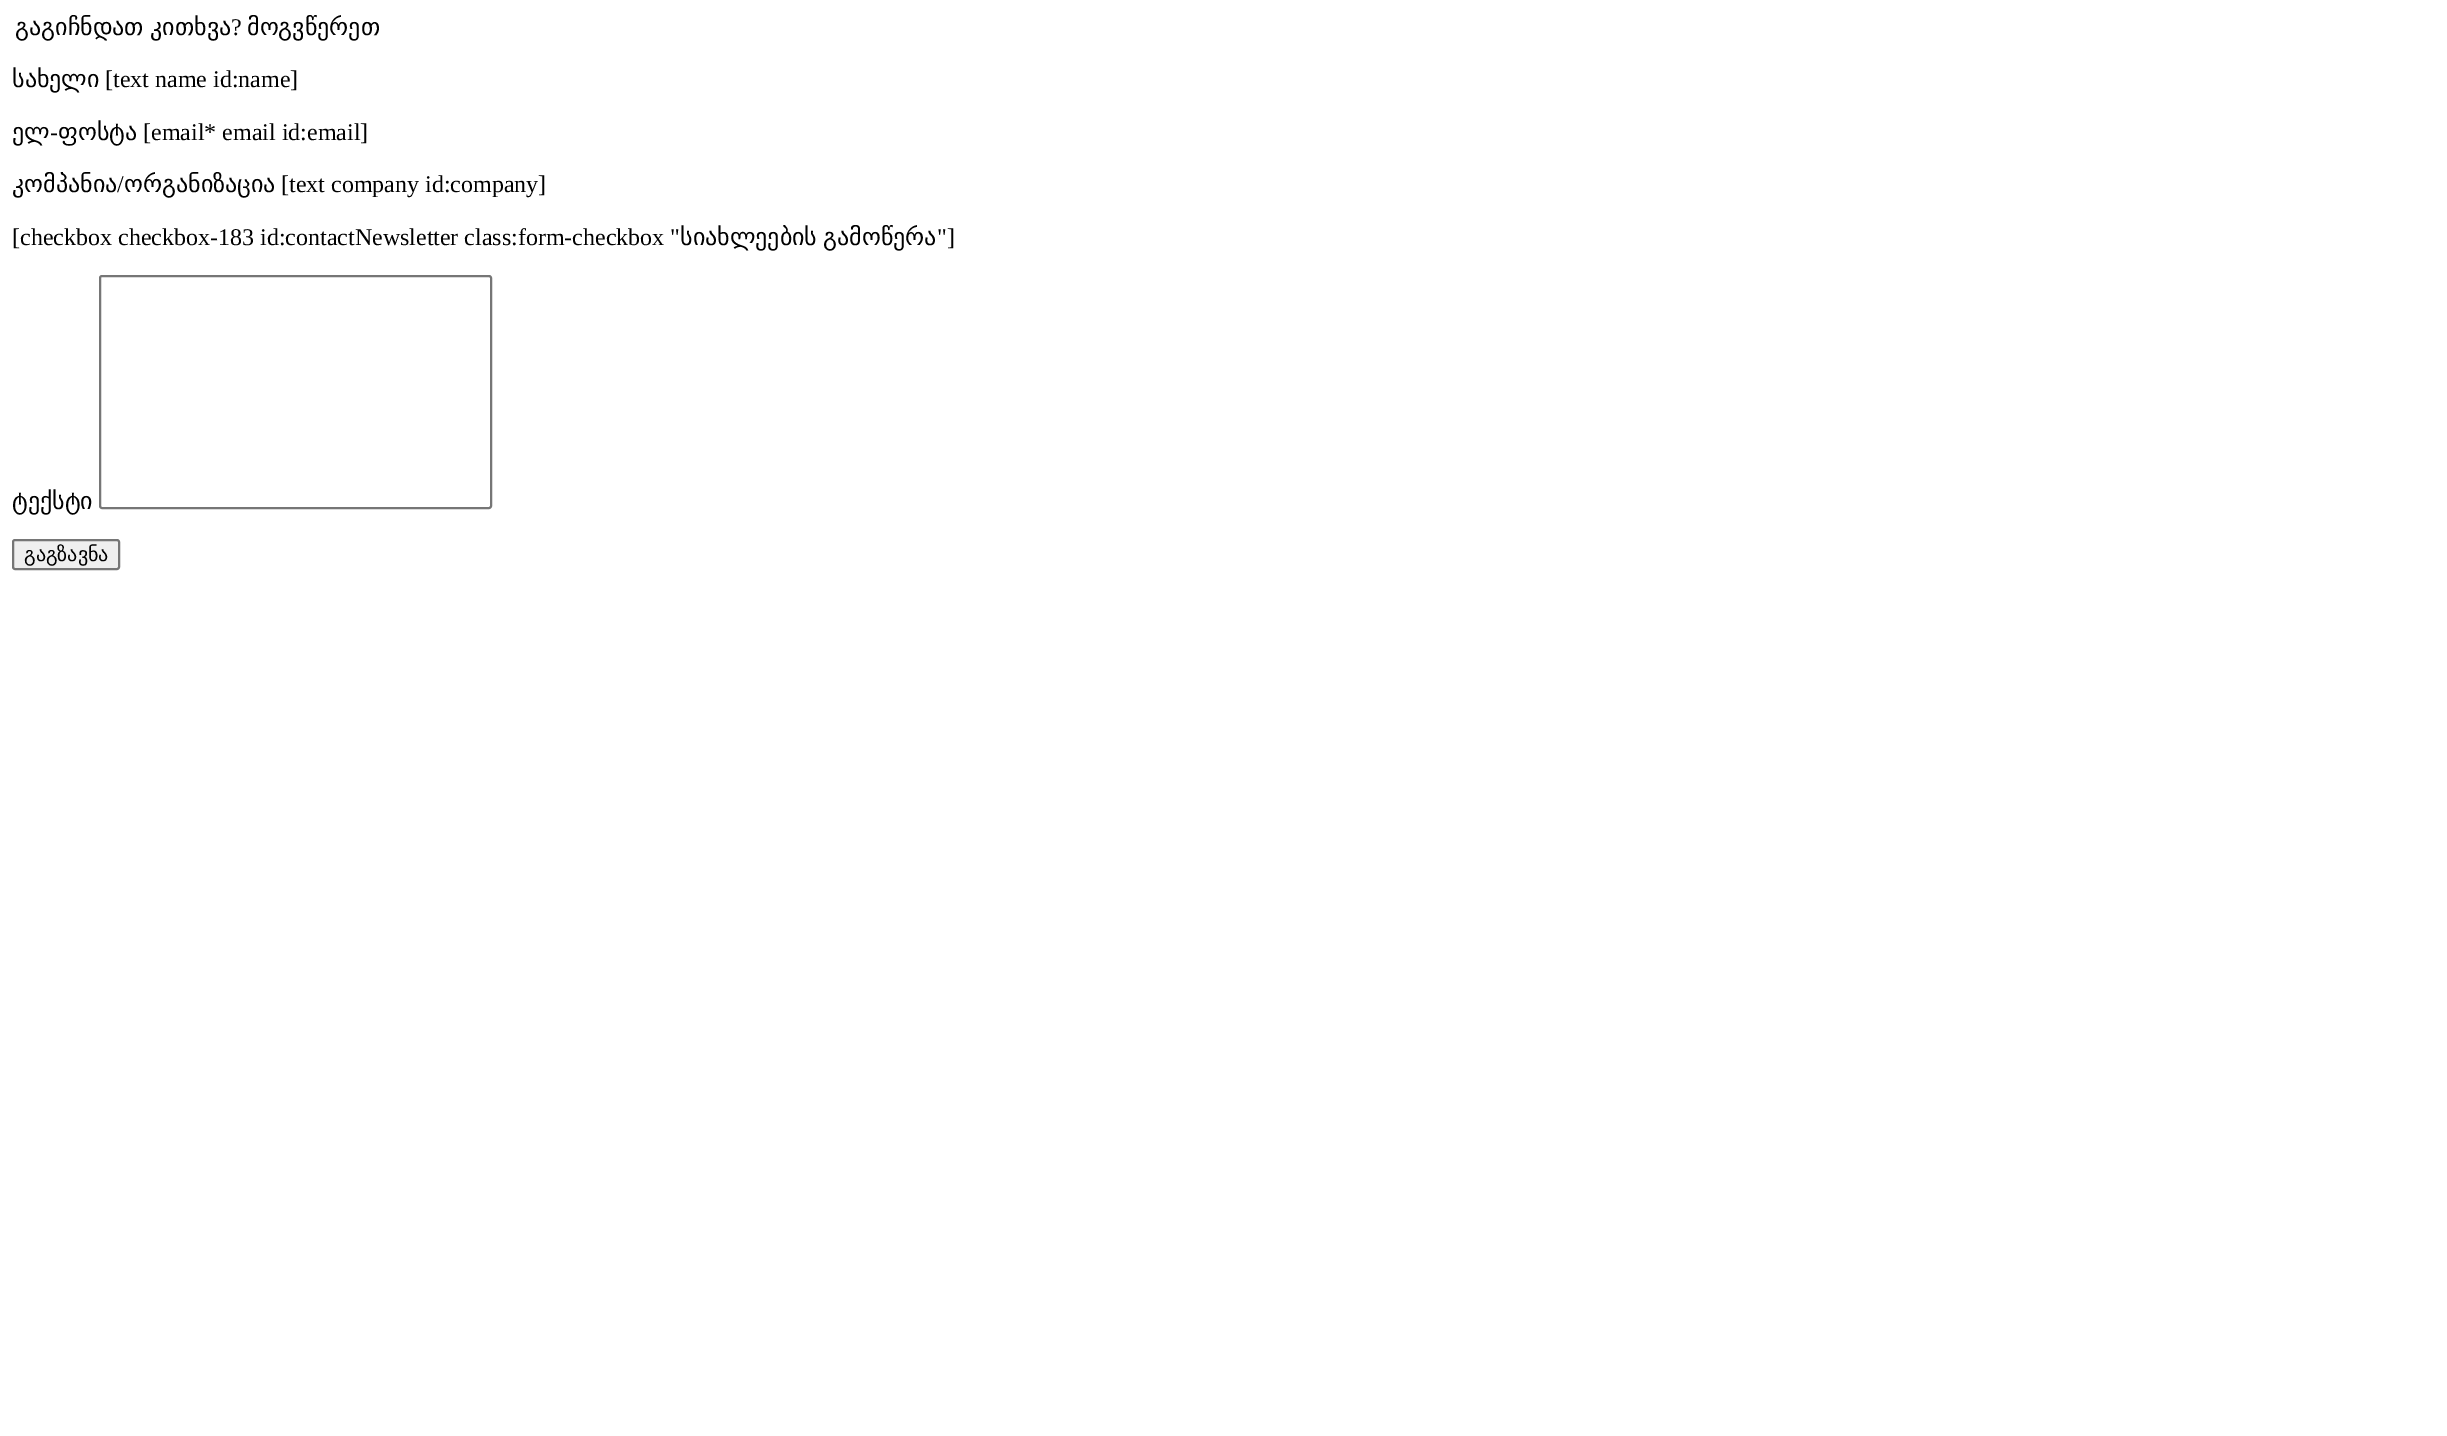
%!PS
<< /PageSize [2447 1436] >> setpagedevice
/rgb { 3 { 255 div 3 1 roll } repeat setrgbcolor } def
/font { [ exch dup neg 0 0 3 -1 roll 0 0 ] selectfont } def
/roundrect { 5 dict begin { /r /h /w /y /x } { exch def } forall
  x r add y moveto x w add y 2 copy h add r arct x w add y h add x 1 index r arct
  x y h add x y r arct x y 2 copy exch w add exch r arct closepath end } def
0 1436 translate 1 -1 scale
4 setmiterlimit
255 255 255 rgb
0 0 2447 1436 rectfill
118 118 118 rgb
2 setlinewidth
100 276 391 232 2 roundrect stroke
239 239 239 rgb
13 540 106 29 2 roundrect gsave fill grestore
118 118 118 rgb
stroke
/DejaVuSans-Regular 24 font
0 0 0 rgb
15 35 moveto -1 0 32 (გაგიჩნდათ კითხვა) widthshow
/LiberationSerif-Regular 24 font
231 35 moveto (?) show
/DejaVuSans-Regular 24 font
247 35 moveto (მოგვწერეთ) show
12 87 moveto (სახელი) show
/LiberationSerif-Regular 24 font
105 87 moveto ([text name id:name]) show
/DejaVuSans-Regular 24 font
12 140 moveto (ელ) show
/LiberationSerif-Regular 24 font
50 140 moveto (-) show
/DejaVuSans-Regular 24 font
58 140 moveto (ფოსტა) show
/LiberationSerif-Regular 24 font
143 140 moveto ([email* email id:email]) show
/DejaVuSans-Regular 24 font
12 192 moveto (კომპანია) show
/LiberationSerif-Regular 24 font
117 192 moveto (/) show
/DejaVuSans-Regular 24 font
124 192 moveto (ორგანიზაცია) show
/LiberationSerif-Regular 24 font
281 192 moveto ([text company id:company]) show
12 245 moveto ([checkbox checkbox-183 id:contactNewsletter class:form-checkbox ") show
/DejaVuSans-Regular 24 font
680 245 moveto (სიახლეების) show
823 245 moveto (გამოწერა) show
/LiberationSerif-Regular 24 font
937 245 moveto ("]) show
/DejaVuSans-Regular 24 font
12 509 moveto (ტექსტი) show
/DejaVuSans-Regular 20 font
24 561 moveto (გაგზავნა) show
showpage
